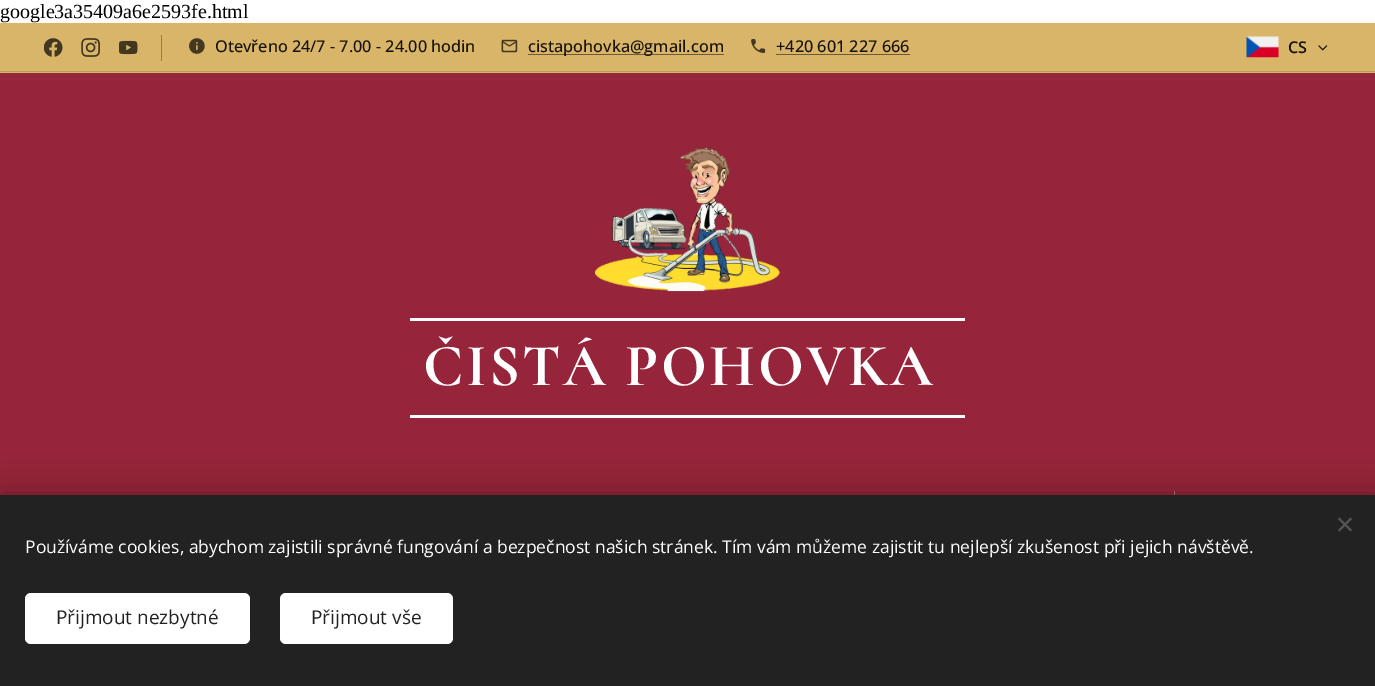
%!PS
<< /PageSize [1375 686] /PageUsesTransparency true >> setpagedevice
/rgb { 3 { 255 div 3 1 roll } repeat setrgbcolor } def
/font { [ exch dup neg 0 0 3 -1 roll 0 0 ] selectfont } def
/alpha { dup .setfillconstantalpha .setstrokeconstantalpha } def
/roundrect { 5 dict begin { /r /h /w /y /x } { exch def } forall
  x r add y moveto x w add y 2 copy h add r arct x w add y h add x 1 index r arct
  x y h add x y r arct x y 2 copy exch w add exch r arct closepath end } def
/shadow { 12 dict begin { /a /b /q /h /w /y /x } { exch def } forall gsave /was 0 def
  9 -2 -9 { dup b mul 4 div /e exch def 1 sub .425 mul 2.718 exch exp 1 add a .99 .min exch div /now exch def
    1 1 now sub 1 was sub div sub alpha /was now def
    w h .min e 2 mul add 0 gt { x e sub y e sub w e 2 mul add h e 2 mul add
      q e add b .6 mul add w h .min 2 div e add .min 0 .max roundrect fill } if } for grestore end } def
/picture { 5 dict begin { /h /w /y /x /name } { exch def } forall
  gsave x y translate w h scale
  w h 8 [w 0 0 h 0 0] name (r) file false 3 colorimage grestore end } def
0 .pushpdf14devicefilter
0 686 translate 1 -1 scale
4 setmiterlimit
255 255 255 rgb
0 0 1375 686 rectfill
217 181 105 rgb
0 23 1375 50 rectfill
(img/1.rgb) 44 38 19 19 picture
(img/2.rgb) 81 38 19 19 picture
(img/3.rgb) 119 40 19 15 picture
152 127 74 rgb
161 35 1 26 rectfill
(img/4.rgb) 189 38 16 16 picture
(img/5.rgb) 501 39 17 14 picture
109 91 53 rgb
528 54 196 1 rectfill
(img/6.rgb) 751 39 15 14 picture
776 54 134 1 rectfill
(img/7.rgb) 1246 36 33 22 picture
(img/8.rgb) 1318 45 10 6 picture
184 154 89 rgb
0 71 1375 1 rectfill
150 36 58 rgb
0 73 1375 422 rectfill
(img/9.rgb) 595 147 185 145 picture
[
  [410 318 555 3 255 255 255]
  [410 415 555 3 255 255 255]
  [1174 491 1 4 187 113 127]
] { aload pop rgb rectfill } forall
0 0 0 rgb
0 495 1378 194 0 15.5 0.33 shadow
34 34 34 rgb
0 495 1375 191 rectfill
85 85 85 rgb
1338 530 moveto 1350.5 517.5 lineto 1352 519 lineto 1339.5 531.5 lineto closepath fill
1339.5 517.5 moveto 1352 530 lineto 1350.5 531.5 lineto 1338 519 lineto closepath fill
255 255 255 rgb
25 593 225 51 6 roundrect fill
280 593 173 51 6 roundrect fill
/LiberationSerif-Regular 20 font
0 0 0 rgb
0 18 moveto (google3a35409a6e2593fe.html) show
/OpenSans-Medium 16.25 font
22 18 11 rgb
[
  [(Otevřeno 24/7 - 7.00 - 24.00 hodin) 215 52]
  [(cistapohovka@gmail.com) 528 52]
  [(+420 601 227 666) 776 52]
] { aload pop moveto show } forall
/OpenSans-SemiBold 16.25 font
1288 53 moveto (CS) show
/Cormorant-Bold 60 font
255 255 255 rgb
423 385 moveto 2.5 0 (ČISTÁ POHOVKA) ashow
/OpenSans-Regular 17.5 font
25 553 moveto (Používáme cookies, abychom zajistili správné fungování a bezpečnost našich stránek. Tím vám můžeme zajistit tu nejlepší zkušenost při jejich návštěvě.) show
/OpenSans-Regular 19 font
34 34 34 rgb
56 624 moveto (Přijmout nezbytné) show
311 624 moveto (Přijmout vše) show
.poppdf14devicefilter showpage
